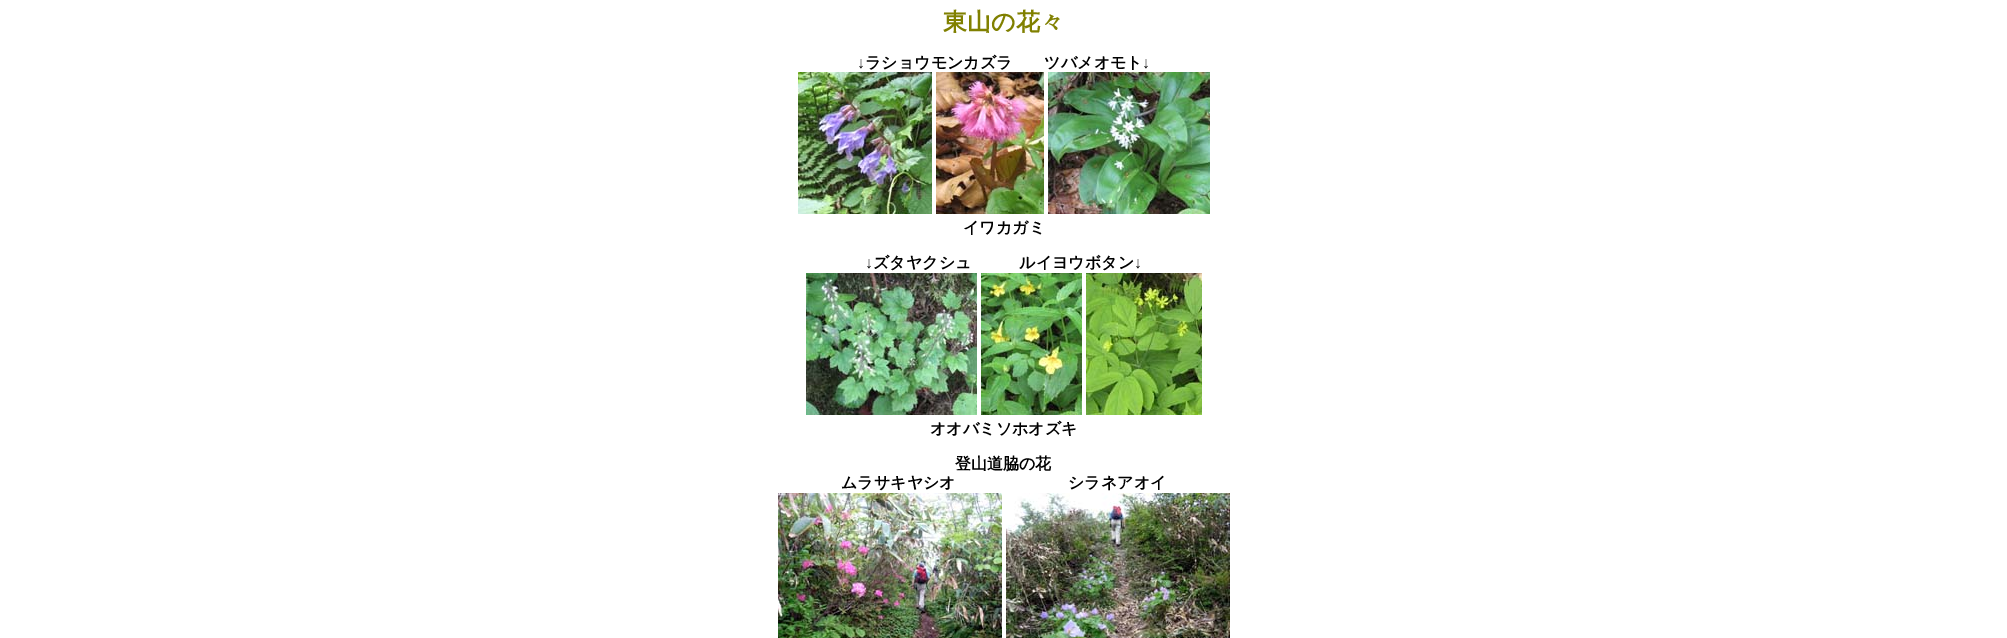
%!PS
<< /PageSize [2007 638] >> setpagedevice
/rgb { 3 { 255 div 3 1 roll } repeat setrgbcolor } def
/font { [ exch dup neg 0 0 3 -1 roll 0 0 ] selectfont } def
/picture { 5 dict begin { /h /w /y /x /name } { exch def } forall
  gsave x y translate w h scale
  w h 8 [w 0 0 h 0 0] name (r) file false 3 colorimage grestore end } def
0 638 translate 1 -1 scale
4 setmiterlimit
255 255 255 rgb
0 0 2007 638 rectfill
(img/1.rgb) 798 72 134 142 picture
(img/2.rgb) 936 72 108 142 picture
(img/3.rgb) 1048 72 162 142 picture
(img/4.rgb) 806 273 171 142 picture
(img/5.rgb) 981 273 101 142 picture
(img/6.rgb) 1086 273 116 142 picture
(img/7.rgb) 778 493 224 145 picture
(img/8.rgb) 1006 493 224 145 picture
/WenQuanYiZenHei-Bold 24 font
128 128 0 rgb
943 30 moveto (東山の花々) show
/LiberationSans-Bold 16 font
0 0 0 rgb
857 68 moveto (↓) show
/WenQuanYiZenHei-Bold 16 font
865 68 moveto (ラショウモンカズラ　　ツバメオモト) show
/LiberationSans-Bold 16 font
1142 68 moveto (↓) show
/WenQuanYiZenHei-Bold 16 font
963 233 moveto (イワカガミ) show
/LiberationSans-Bold 16 font
865 268 moveto (↓) show
/WenQuanYiZenHei-Bold 16 font
873 268 moveto (ズタヤクシュ　　　ルイヨウボタン) show
/LiberationSans-Bold 16 font
1134 268 moveto (↓) show
/WenQuanYiZenHei-Bold 16 font
[
  [(オオバミソホオズキ) 930 434]
  [(登山道脇の花) 955 469]
  [(ムラサキヤシオ) 841 488]
  [(シラネアオイ) 1068 488]
] { aload pop moveto show } forall
showpage
